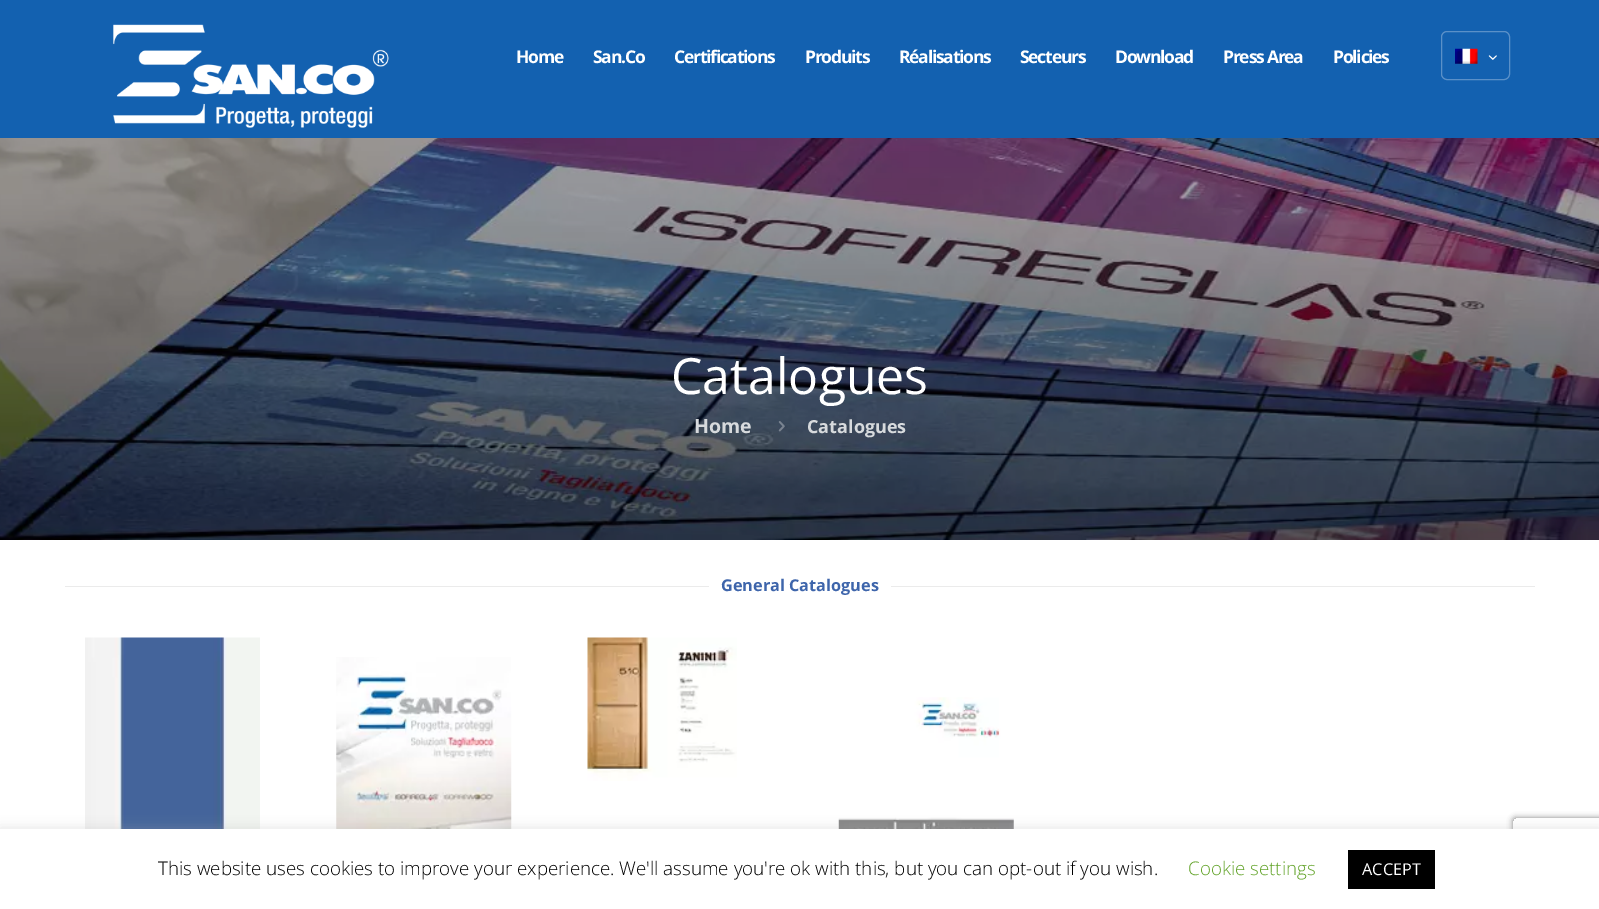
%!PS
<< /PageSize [1599 909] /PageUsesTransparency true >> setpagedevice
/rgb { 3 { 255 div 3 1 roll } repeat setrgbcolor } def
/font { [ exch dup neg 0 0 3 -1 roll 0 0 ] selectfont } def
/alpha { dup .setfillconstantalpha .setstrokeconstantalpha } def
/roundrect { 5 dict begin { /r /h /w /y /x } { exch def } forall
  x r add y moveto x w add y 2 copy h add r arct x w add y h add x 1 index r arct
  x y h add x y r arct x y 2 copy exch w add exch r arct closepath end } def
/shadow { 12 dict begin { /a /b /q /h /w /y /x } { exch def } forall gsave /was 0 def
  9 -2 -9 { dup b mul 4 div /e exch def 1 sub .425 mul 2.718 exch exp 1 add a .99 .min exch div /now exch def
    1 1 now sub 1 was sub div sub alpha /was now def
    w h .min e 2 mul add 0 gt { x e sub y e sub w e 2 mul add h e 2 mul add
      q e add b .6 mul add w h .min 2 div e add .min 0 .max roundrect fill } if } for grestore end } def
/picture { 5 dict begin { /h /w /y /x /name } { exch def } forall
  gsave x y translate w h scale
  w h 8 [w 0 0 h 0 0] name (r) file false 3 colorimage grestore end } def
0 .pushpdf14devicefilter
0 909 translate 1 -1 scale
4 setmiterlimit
255 255 255 rgb
0 0 1599 909 rectfill
(img/1.rgb) 0 138 1599 402 picture
19 97 176 rgb
0 0 1599 138 rectfill
(img/2.rgb) 113 24 276 104 picture
90 144 200 rgb
1441.5 31.5 68 48 5.5 roundrect stroke
(img/3.rgb) 1455 48 23 16 picture
(img/4.rgb) 1488 55 9 5 picture
0.35 alpha
0 0 0 rgb
0 138 1599 402 rectfill
1 alpha
(img/5.rgb) 778 421 7 11 picture
235 235 235 rgb
65 586 644 1 rectfill
891 586 644 1 rectfill
(img/6.rgb) 85 637 175 192 picture
(img/7.rgb) 336 657 176 172 picture
(img/8.rgb) 587 637 150 144 picture
(img/9.rgb) 838 697 176 132 picture
172 171 171 rgb
0 828 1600 81 0 6 0.3 shadow
gsave
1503 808 moveto 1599 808 lineto 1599 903 lineto 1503 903 lineto closepath 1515.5 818 moveto 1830.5 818 lineto 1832 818 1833 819 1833 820.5 curveto 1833 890.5 lineto 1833 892 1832 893 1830.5 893 curveto 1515.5 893 lineto 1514 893 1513 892 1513 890.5 curveto 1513 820.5 lineto 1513 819 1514 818 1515.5 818 curveto closepath eoclip newpath
128 128 128 rgb
1513 818 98 75 2.5 3 1 shadow
grestore
255 255 255 rgb
0 829 1599 80 rectfill
0 0 0 rgb
1348 850 87 39 rectfill
/OpenSans-Bold 17.5 font
255 255 255 rgb
516 63 moveto -1.25 0 (Home) ashow
593 63 moveto -1.25 0 (San.Co) ashow
674 63 moveto -1.25 0 (Certifications) ashow
805 63 moveto -1.25 0 (Produits) ashow
899 63 moveto -1.25 0 (Réalisations) ashow
1020 63 moveto -1.25 0 (Secteurs) ashow
1115 63 moveto -1.25 0 (Download) ashow
1223 63 moveto -1.25 0 (Press Area) ashow
1333 63 moveto -1.25 0 (Policies) ashow
/OpenSans-Regular 50 font
671 394 moveto (Catalogues) show
/OpenSans-Bold 19.5 font
215 218 221 rgb
694 433 moveto (Home) show
/OpenSans-Bold 18 font
807 433 moveto (Catalogues) show
/OpenSans-Bold 16.25 font
62 101 171 rgb
721 591 moveto (General Catalogues) show
/OpenSans-Light 18.75 font
0 0 0 rgb
158 875 moveto (This website uses cookies to improve your experience. We'll assume you're ok with this, but you can opt-out if you wish.) show
98 163 41 rgb
1188 875 moveto (Cookie settings) show
/OpenSans-Regular 16.25 font
255 255 255 rgb
1362 875 moveto (ACCEPT) show
.poppdf14devicefilter showpage
